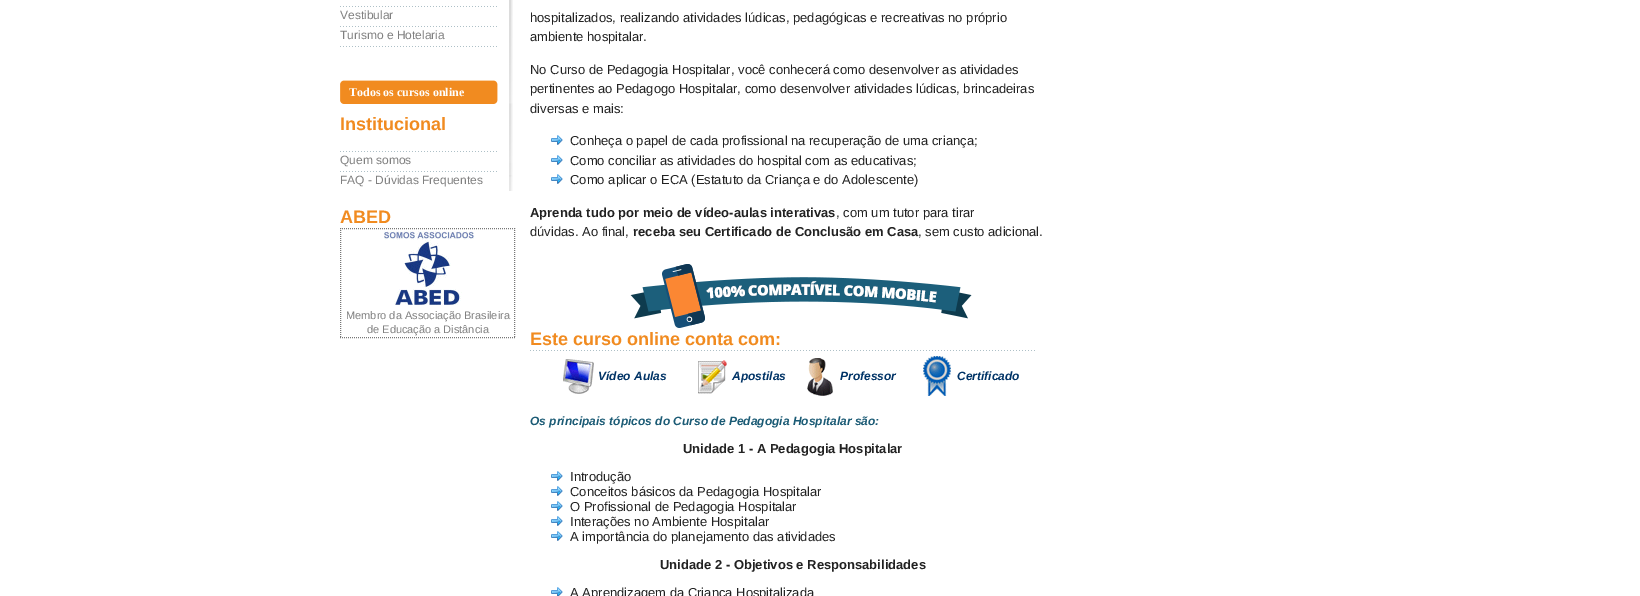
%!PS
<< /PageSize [1640 596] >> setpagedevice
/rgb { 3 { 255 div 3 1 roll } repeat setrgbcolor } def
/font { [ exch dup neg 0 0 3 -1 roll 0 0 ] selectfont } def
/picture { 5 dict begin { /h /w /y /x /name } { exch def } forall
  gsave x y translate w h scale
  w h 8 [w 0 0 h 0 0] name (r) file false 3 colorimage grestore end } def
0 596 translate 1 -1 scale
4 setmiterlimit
255 255 255 rgb
0 0 1640 596 rectfill
(img/1.rgb) 509 0 4 191 picture
(img/2.rgb) 340 6 157 1 picture
(img/2.rgb) 340 26 157 1 picture
(img/2.rgb) 340 46 157 1 picture
(img/3.rgb) 340 80 158 24 picture
(img/2.rgb) 340 151 157 1 picture
(img/2.rgb) 340 171 157 1 picture
119 119 119 rgb
[1 1] 0 setdash
340 228.5 moveto 515 228.5 lineto stroke
514.5 228 moveto 514.5 338 lineto stroke
340 337.5 moveto 515 337.5 lineto stroke
340.5 228 moveto 340.5 338 lineto stroke
(img/4.rgb) 384 231 91 74 picture
(img/5.rgb) 551 135 12 10 picture
(img/5.rgb) 551 155 12 10 picture
(img/5.rgb) 551 174 12 10 picture
(img/6.rgb) 630 264 342 64 picture
(img/7.rgb) 530 350 505 1 picture
(img/8.rgb) 563 359 31 35 picture
(img/9.rgb) 698 360 29 34 picture
(img/10.rgb) 807 358 26 38 picture
(img/11.rgb) 923 356 28 40 picture
(img/5.rgb) 551 471 12 10 picture
(img/5.rgb) 551 486 12 10 picture
(img/5.rgb) 551 501 12 10 picture
(img/5.rgb) 551 516 12 10 picture
(img/5.rgb) 551 531 12 10 picture
(img/12.rgb) 551 587 12 9 picture
/LiberationSans-Regular 12 font
128 128 128 rgb
340 19 moveto (Vestibular) show
340 39 moveto (Turismo e Hotelaria) show
/LiberationSerif-Bold 12 font
255 255 255 rgb
349 96 moveto (Todos os cursos online) show
/LiberationSans-Bold 18 font
241 139 32 rgb
340 130 moveto (Institucional) show
/LiberationSans-Regular 12 font
128 128 128 rgb
340 164 moveto (Quem somos) show
340 184 moveto (FAQ - Dúvidas Frequentes) show
/LiberationSans-Bold 18 font
241 139 32 rgb
340 223 moveto (ABED) show
/LiberationSans-Regular 11 font
128 128 128 rgb
346 319 moveto (Membro da Associação Brasileira) show
367 333 moveto (de Educação a Distância) show
/LiberationSans-Regular 13 font
34 34 34 rgb
[
  [(hospitalizados, realizando atividades lúdicas, pedagógicas e recreativas no próprio) 530 22]
  [(ambiente hospitalar.) 530 41]
  [(No Curso de Pedagogia Hospitalar, você conhecerá como desenvolver as atividades) 530 74]
  [(pertinentes ao Pedagogo Hospitalar, como desenvolver atividades lúdicas, brincadeiras) 530 93]
  [(diversas e mais:) 530 113]
  [(Conheça o papel de cada profissional na recuperação de uma criança;) 570 145]
  [(Como conciliar as atividades do hospital com as educativas;) 570 165]
  [(Como aplicar o ECA \(Estatuto da Criança e do Adolescente\)) 570 184]
] { aload pop moveto show } forall
/LiberationSans-Bold 13 font
530 217 moveto (Aprenda tudo por meio de vídeo-aulas interativas) show
/LiberationSans-Regular 13 font
836 217 moveto (, com um tutor para tirar) show
530 236 moveto (dúvidas. Ao final,) show
/LiberationSans-Bold 13 font
633 236 moveto (receba seu Certificado de Conclusão em Casa) show
/LiberationSans-Regular 13 font
918 236 moveto (, sem custo adicional.) show
/LiberationSans-Bold 18 font
241 139 32 rgb
530 345 moveto (Este curso online conta com:) show
/LiberationSans-BoldItalic 12 font
0 51 102 rgb
[
  [(Vídeo Aulas) 598 380]
  [(Apostilas) 732 380]
  [(Professor) 840 380]
  [(Certificado) 957 380]
] { aload pop moveto show } forall
27 91 117 rgb
530 425 moveto (Os principais tópicos do Curso de Pedagogia Hospitalar são:) show
/LiberationSans-Bold 13 font
34 34 34 rgb
683 453 moveto (Unidade 1 - A Pedagogia Hospitalar) show
/LiberationSans-Regular 13 font
[
  [(Introdução) 570 481]
  [(Conceitos básicos da Pedagogia Hospitalar) 570 496]
  [(O Profissional de Pedagogia Hospitalar) 570 511]
  [(Interações no Ambiente Hospitalar) 570 526]
  [(A importância do planejamento das atividades) 570 541]
] { aload pop moveto show } forall
/LiberationSans-Bold 13 font
660 569 moveto (Unidade 2 - Objetivos e Responsabilidades) show
/LiberationSans-Regular 13 font
570 597 moveto (A Aprendizagem da Criança Hospitalizada) show
showpage
